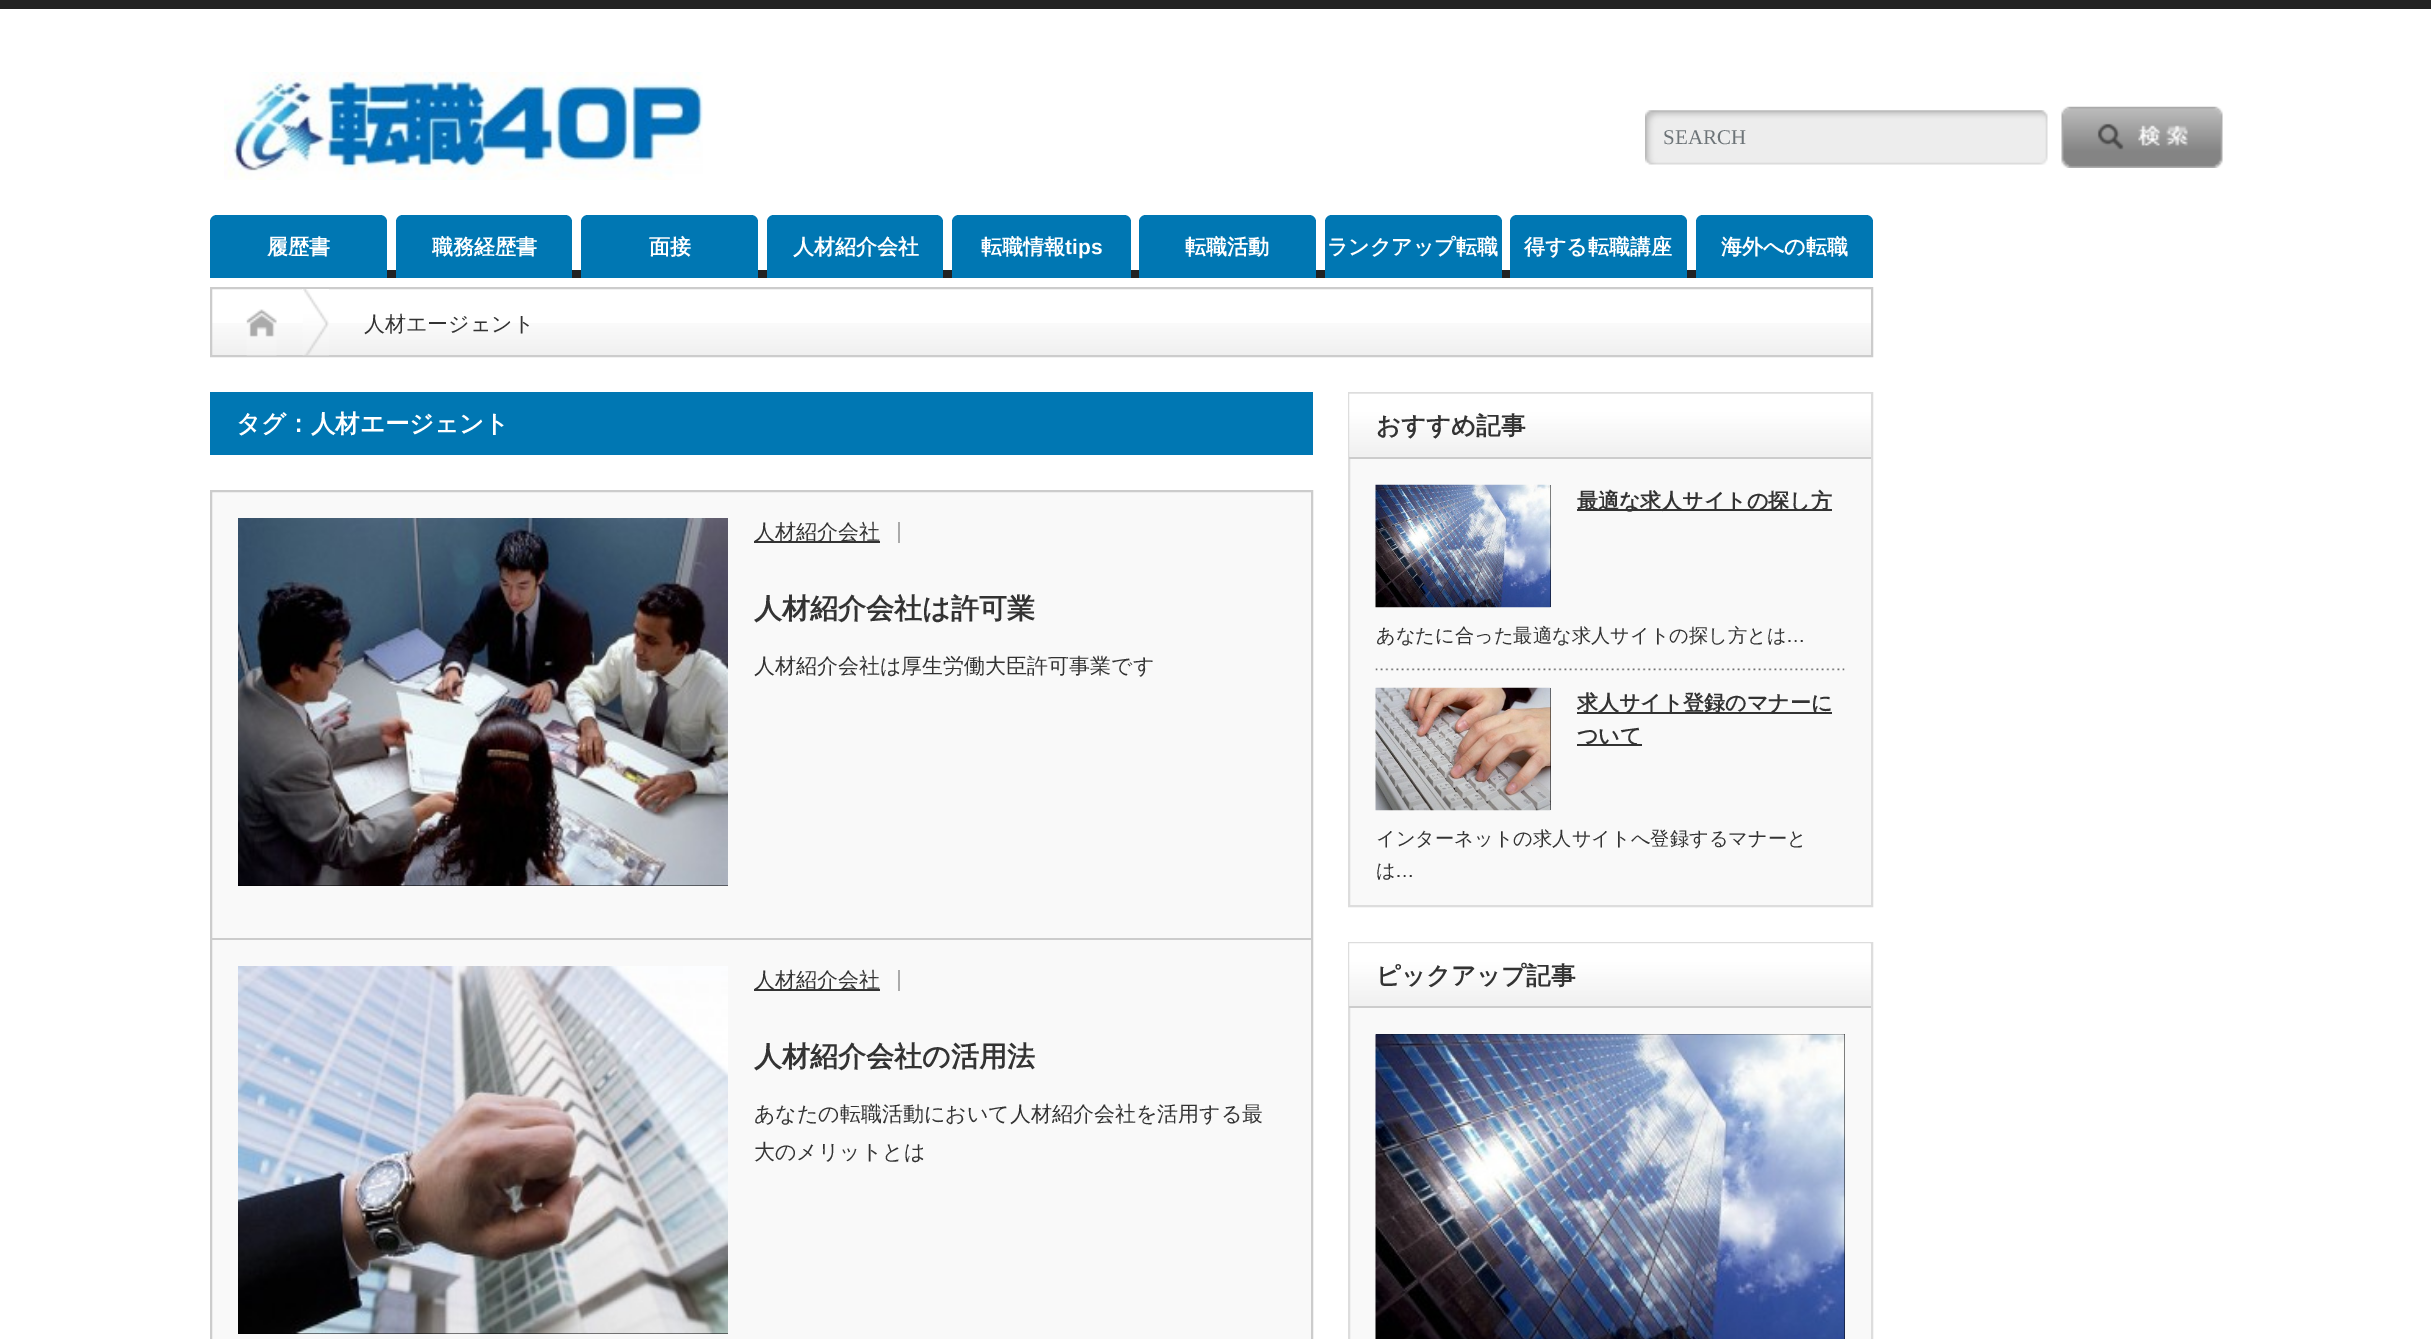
%!PS
<< /PageSize [2431 1339] >> setpagedevice
/rgb { 3 { 255 div 3 1 roll } repeat setrgbcolor } def
/font { [ exch dup neg 0 0 3 -1 roll 0 0 ] selectfont } def
/picture { 5 dict begin { /h /w /y /x /name } { exch def } forall
  gsave x y translate w h scale
  w h 8 [w 0 0 h 0 0] name (r) file false 3 colorimage grestore end } def
0 1339 translate 1 -1 scale
4 setmiterlimit
255 255 255 rgb
0 0 2431 1339 rectfill
34 34 34 rgb
0 0 2431 9 rectfill
(img/1.rgb) 224 72 479 108 picture
(img/2.rgb) 1645 110 403 55 picture
(img/3.rgb) 2061 106 162 62 picture
387 270 1309 8 rectfill
0 119 179 rgb
217 215 moveto 380 215 lineto 384 215 387 218 387 222 curveto 387 278 lineto 210 278 lineto 210 222 lineto 210 218 213 215 217 215 curveto closepath fill
403 215 moveto 565 215 lineto 569 215 572 218 572 222 curveto 572 278 lineto 396 278 lineto 396 222 lineto 396 218 399 215 403 215 curveto closepath fill
588 215 moveto 751 215 lineto 755 215 758 218 758 222 curveto 758 278 lineto 581 278 lineto 581 222 lineto 581 218 584 215 588 215 curveto closepath fill
774 215 moveto 936 215 lineto 940 215 943 218 943 222 curveto 943 278 lineto 767 278 lineto 767 222 lineto 767 218 770 215 774 215 curveto closepath fill
959 215 moveto 1124 215 lineto 1128 215 1131 218 1131 222 curveto 1131 278 lineto 952 278 lineto 952 222 lineto 952 218 955 215 959 215 curveto closepath fill
1146 215 moveto 1309 215 lineto 1313 215 1316 218 1316 222 curveto 1316 278 lineto 1139 278 lineto 1139 222 lineto 1139 218 1142 215 1146 215 curveto closepath fill
1332 215 moveto 1495 215 lineto 1499 215 1502 218 1502 222 curveto 1502 278 lineto 1325 278 lineto 1325 222 lineto 1325 218 1328 215 1332 215 curveto closepath fill
1517 215 moveto 1680 215 lineto 1684 215 1687 218 1687 222 curveto 1687 278 lineto 1510 278 lineto 1510 222 lineto 1510 218 1513 215 1517 215 curveto closepath fill
1703 215 moveto 1866 215 lineto 1870 215 1873 218 1873 222 curveto 1873 278 lineto 1696 278 lineto 1696 222 lineto 1696 218 1699 215 1703 215 curveto closepath fill
(img/4.rgb) 212 323 1659 32 picture
204 204 204 rgb
2 setlinewidth
211 288 1661 68 rectstroke
(img/5.rgb) 302 289 27 67 picture
(img/6.rgb) 246 309 31 47 picture
0 119 179 rgb
210 392 1103 63 rectfill
249 249 249 rgb
211 491 moveto 1312 491 lineto 1312 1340 lineto 211 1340 lineto closepath gsave fill grestore
204 204 204 rgb
stroke
212 938 1099 2 rectfill
0 0 0 rgb
238 885 490 1 rectfill
(img/7.rgb) 238 518 490 368 picture
[
  [898 522 2 21 170 170 170]
  [754 541 126 2 51 51 51]
  [238 1333 490 1 0 0 0]
] { aload pop rgb rectfill } forall
(img/8.rgb) 238 966 490 368 picture
170 170 170 rgb
898 970 2 21 rectfill
51 51 51 rgb
754 989 126 2 rectfill
249 249 249 rgb
1349 393 moveto 1872 393 lineto 1872 906 lineto 1349 906 lineto closepath gsave fill grestore
221 221 221 rgb
stroke
(img/9.rgb) 1349 393 522 64 picture
204 204 204 rgb
1349 457 522 2 rectfill
(img/10.rgb) 1375 668 470 3 picture
0 0 0 rgb
1550 485 1 122 rectfill
(img/11.rgb) 1375 484 176 124 picture
51 51 51 rgb
1577 509 255 2 rectfill
0 0 0 rgb
1550 688 1 122 rectfill
(img/12.rgb) 1375 687 176 124 picture
51 51 51 rgb
1577 712 255 2 rectfill
1577 744 65 2 rectfill
249 249 249 rgb
1349 943 moveto 1872 943 lineto 1872 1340 lineto 1349 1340 lineto closepath gsave fill grestore
221 221 221 rgb
stroke
(img/13.rgb) 1349 943 522 63 picture
204 204 204 rgb
1349 1006 522 2 rectfill
0 0 0 rgb
1376 1034 469 305 rectfill
(img/14.rgb) 1375 1034 470 305 picture
/LiberationSerif-Regular 21 font
109 116 120 rgb
1663 144 moveto (SEARCH) show
/WenQuanYiZenHei-Bold 21 font
255 255 255 rgb
[
  [(履歴書) 267 254]
  [(職務経歴書) 432 254]
  [(面接) 649 254]
  [(人材紹介会社) 793 254]
  [(転職情報) 981 254]
] { aload pop moveto show } forall
/LiberationSans-Bold 21 font
1065 254 moveto (tips) show
/WenQuanYiZenHei-Bold 21 font
[
  [(転職活動) 1185 254]
  [(ランクアップ転職) 1327 254]
  [(得する転職講座) 1524 254]
  [(海外への転職) 1721 254]
] { aload pop moveto show } forall
/WenQuanYiZenHei-Medium 21 font
51 51 51 rgb
364 331 moveto (人材エージェント) show
/WenQuanYiZenHei-Bold 24.5 font
255 255 255 rgb
236 432 moveto (タグ：人材エージェント) show
/WenQuanYiZenHei-Medium 21 font
51 51 51 rgb
754 539 moveto (人材紹介会社) show
/WenQuanYiZenHei-Bold 28 font
754 618 moveto (人材紹介会社は許可業) show
/WenQuanYiZenHei-Medium 21 font
754 673 moveto (人材紹介会社は厚生労働大臣許可事業です) show
754 987 moveto (人材紹介会社) show
/WenQuanYiZenHei-Bold 28 font
754 1066 moveto (人材紹介会社の活用法) show
/WenQuanYiZenHei-Medium 21 font
754 1121 moveto (あなたの転職活動において人材紹介会社を活用する最) show
754 1159 moveto (大のメリットとは) show
/WenQuanYiZenHei-Bold 24.5 font
1376 434 moveto (おすすめ記事) show
/WenQuanYiZenHei-Bold 21 font
1577 508 moveto (最適な求人サイトの探し方) show
/WenQuanYiZenHei-Medium 19.25 font
1376 642 moveto (あなたに合った最適な求人サイトの探し方とは) show
/LiberationSans-Regular 19.25 font
1786 642 moveto (…) show
/WenQuanYiZenHei-Bold 21 font
1577 710 moveto (求人サイト登録のマナーに) show
1577 743 moveto (ついて) show
/WenQuanYiZenHei-Medium 19.25 font
1376 845 moveto (インターネットの求人サイトへ登録するマナーと) show
1376 877 moveto (は) show
/LiberationSans-Regular 19.25 font
1395 877 moveto (…) show
/WenQuanYiZenHei-Bold 24.5 font
1376 984 moveto (ピックアップ記事) show
showpage
